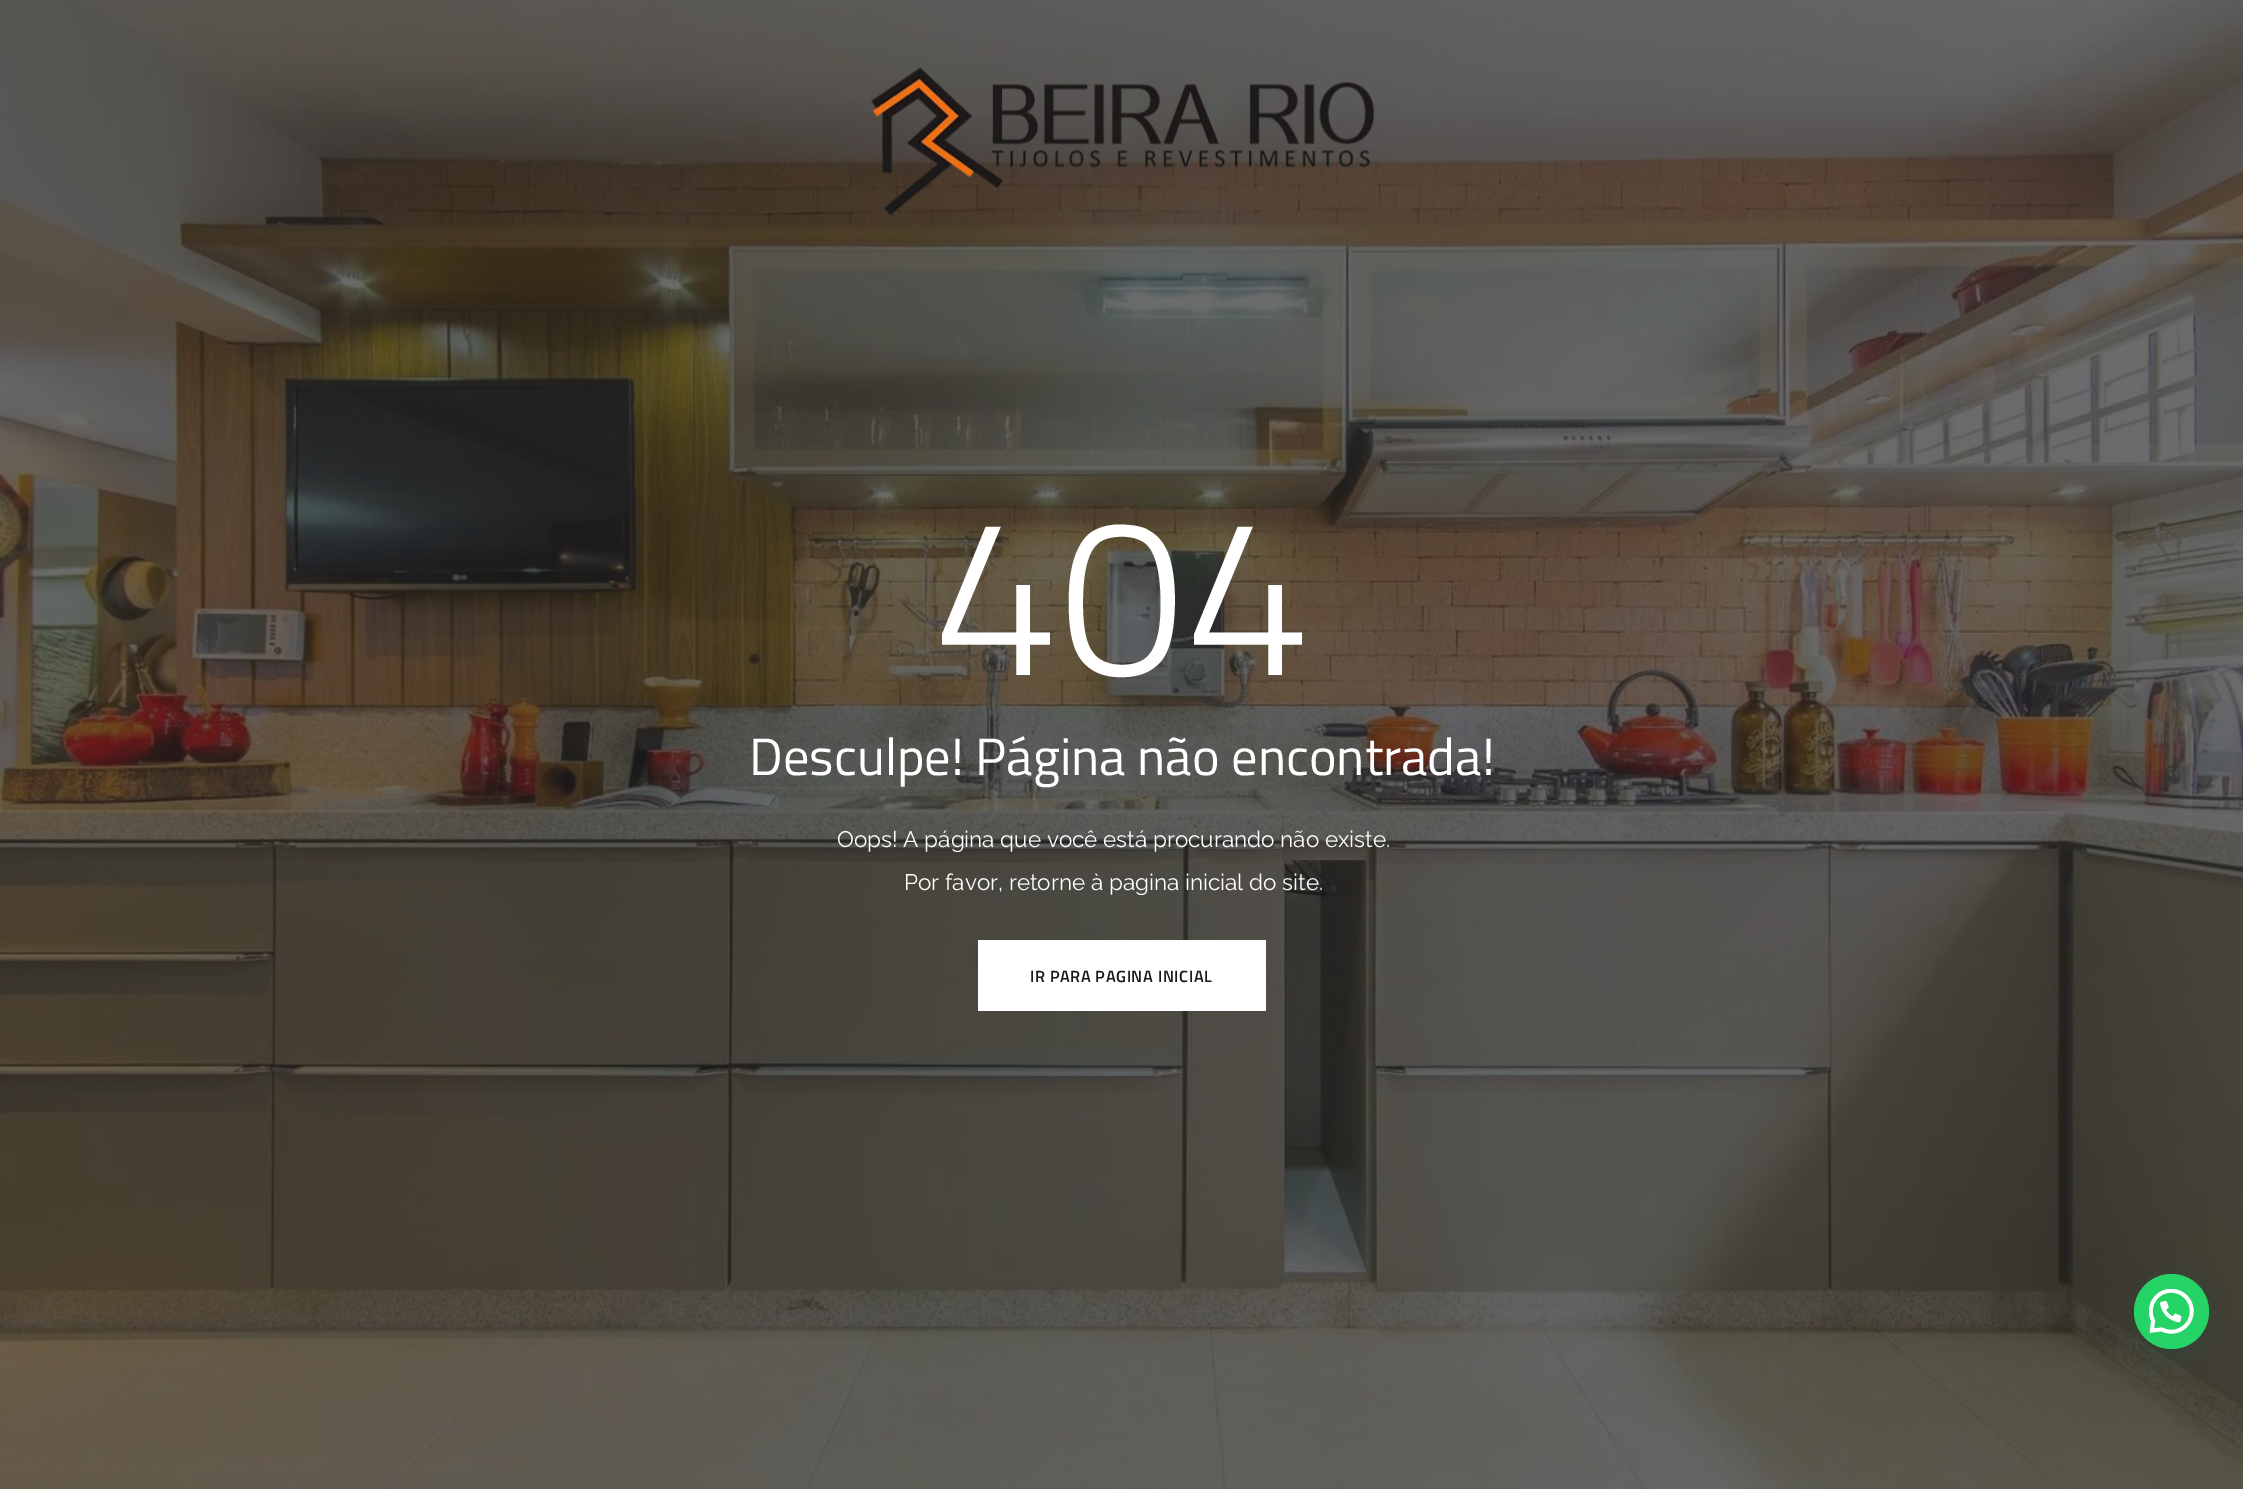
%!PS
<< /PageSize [2243 1489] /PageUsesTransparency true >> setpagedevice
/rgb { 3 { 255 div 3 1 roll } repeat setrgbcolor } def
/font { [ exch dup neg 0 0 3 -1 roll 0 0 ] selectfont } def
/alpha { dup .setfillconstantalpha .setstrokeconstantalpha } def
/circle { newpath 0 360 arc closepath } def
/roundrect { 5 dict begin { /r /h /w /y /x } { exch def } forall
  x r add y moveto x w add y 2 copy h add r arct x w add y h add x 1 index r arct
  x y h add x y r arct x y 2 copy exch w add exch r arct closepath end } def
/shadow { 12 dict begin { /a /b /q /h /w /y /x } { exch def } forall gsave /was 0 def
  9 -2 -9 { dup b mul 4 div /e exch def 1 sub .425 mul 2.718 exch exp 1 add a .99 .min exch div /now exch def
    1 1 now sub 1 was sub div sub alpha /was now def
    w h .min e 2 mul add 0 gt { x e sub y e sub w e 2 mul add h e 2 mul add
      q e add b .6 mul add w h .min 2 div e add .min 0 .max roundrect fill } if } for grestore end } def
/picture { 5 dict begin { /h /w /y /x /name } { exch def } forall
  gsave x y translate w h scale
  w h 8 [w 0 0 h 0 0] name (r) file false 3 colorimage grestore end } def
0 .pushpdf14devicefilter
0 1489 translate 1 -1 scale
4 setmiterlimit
255 255 255 rgb
0 0 2243 1489 rectfill
(img/1.rgb) 0 0 2243 1489 picture
(img/2.rgb) 871 67 503 149 picture
978 940 288 71 rectfill
7 94 84 rgb
2135 1281 75 75 37.5 15 0.24 shadow
37 211 102 rgb
2171.5 1311.5 37.5 circle fill
(img/3.rgb) 2149 1289 45 45 picture
/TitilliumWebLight-Light 225 font
255 255 255 rgb
933 675 moveto (404) show
/TitilliumWeb-Regular 52.5 font
749 775 moveto (Desculpe! Página não encontrada!) show
/Raleway-Regular 22.5 font
837 847 moveto (Oops! A página que você está procurando não existe.) show
904 890 moveto (Por favor, retorne à pagina inicial do site.) show
/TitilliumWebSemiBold-SemiBold 16.25 font
26 26 26 rgb
1030 982 moveto 0.6 0 (IR PARA PAGINA INICIAL) ashow
.poppdf14devicefilter showpage
